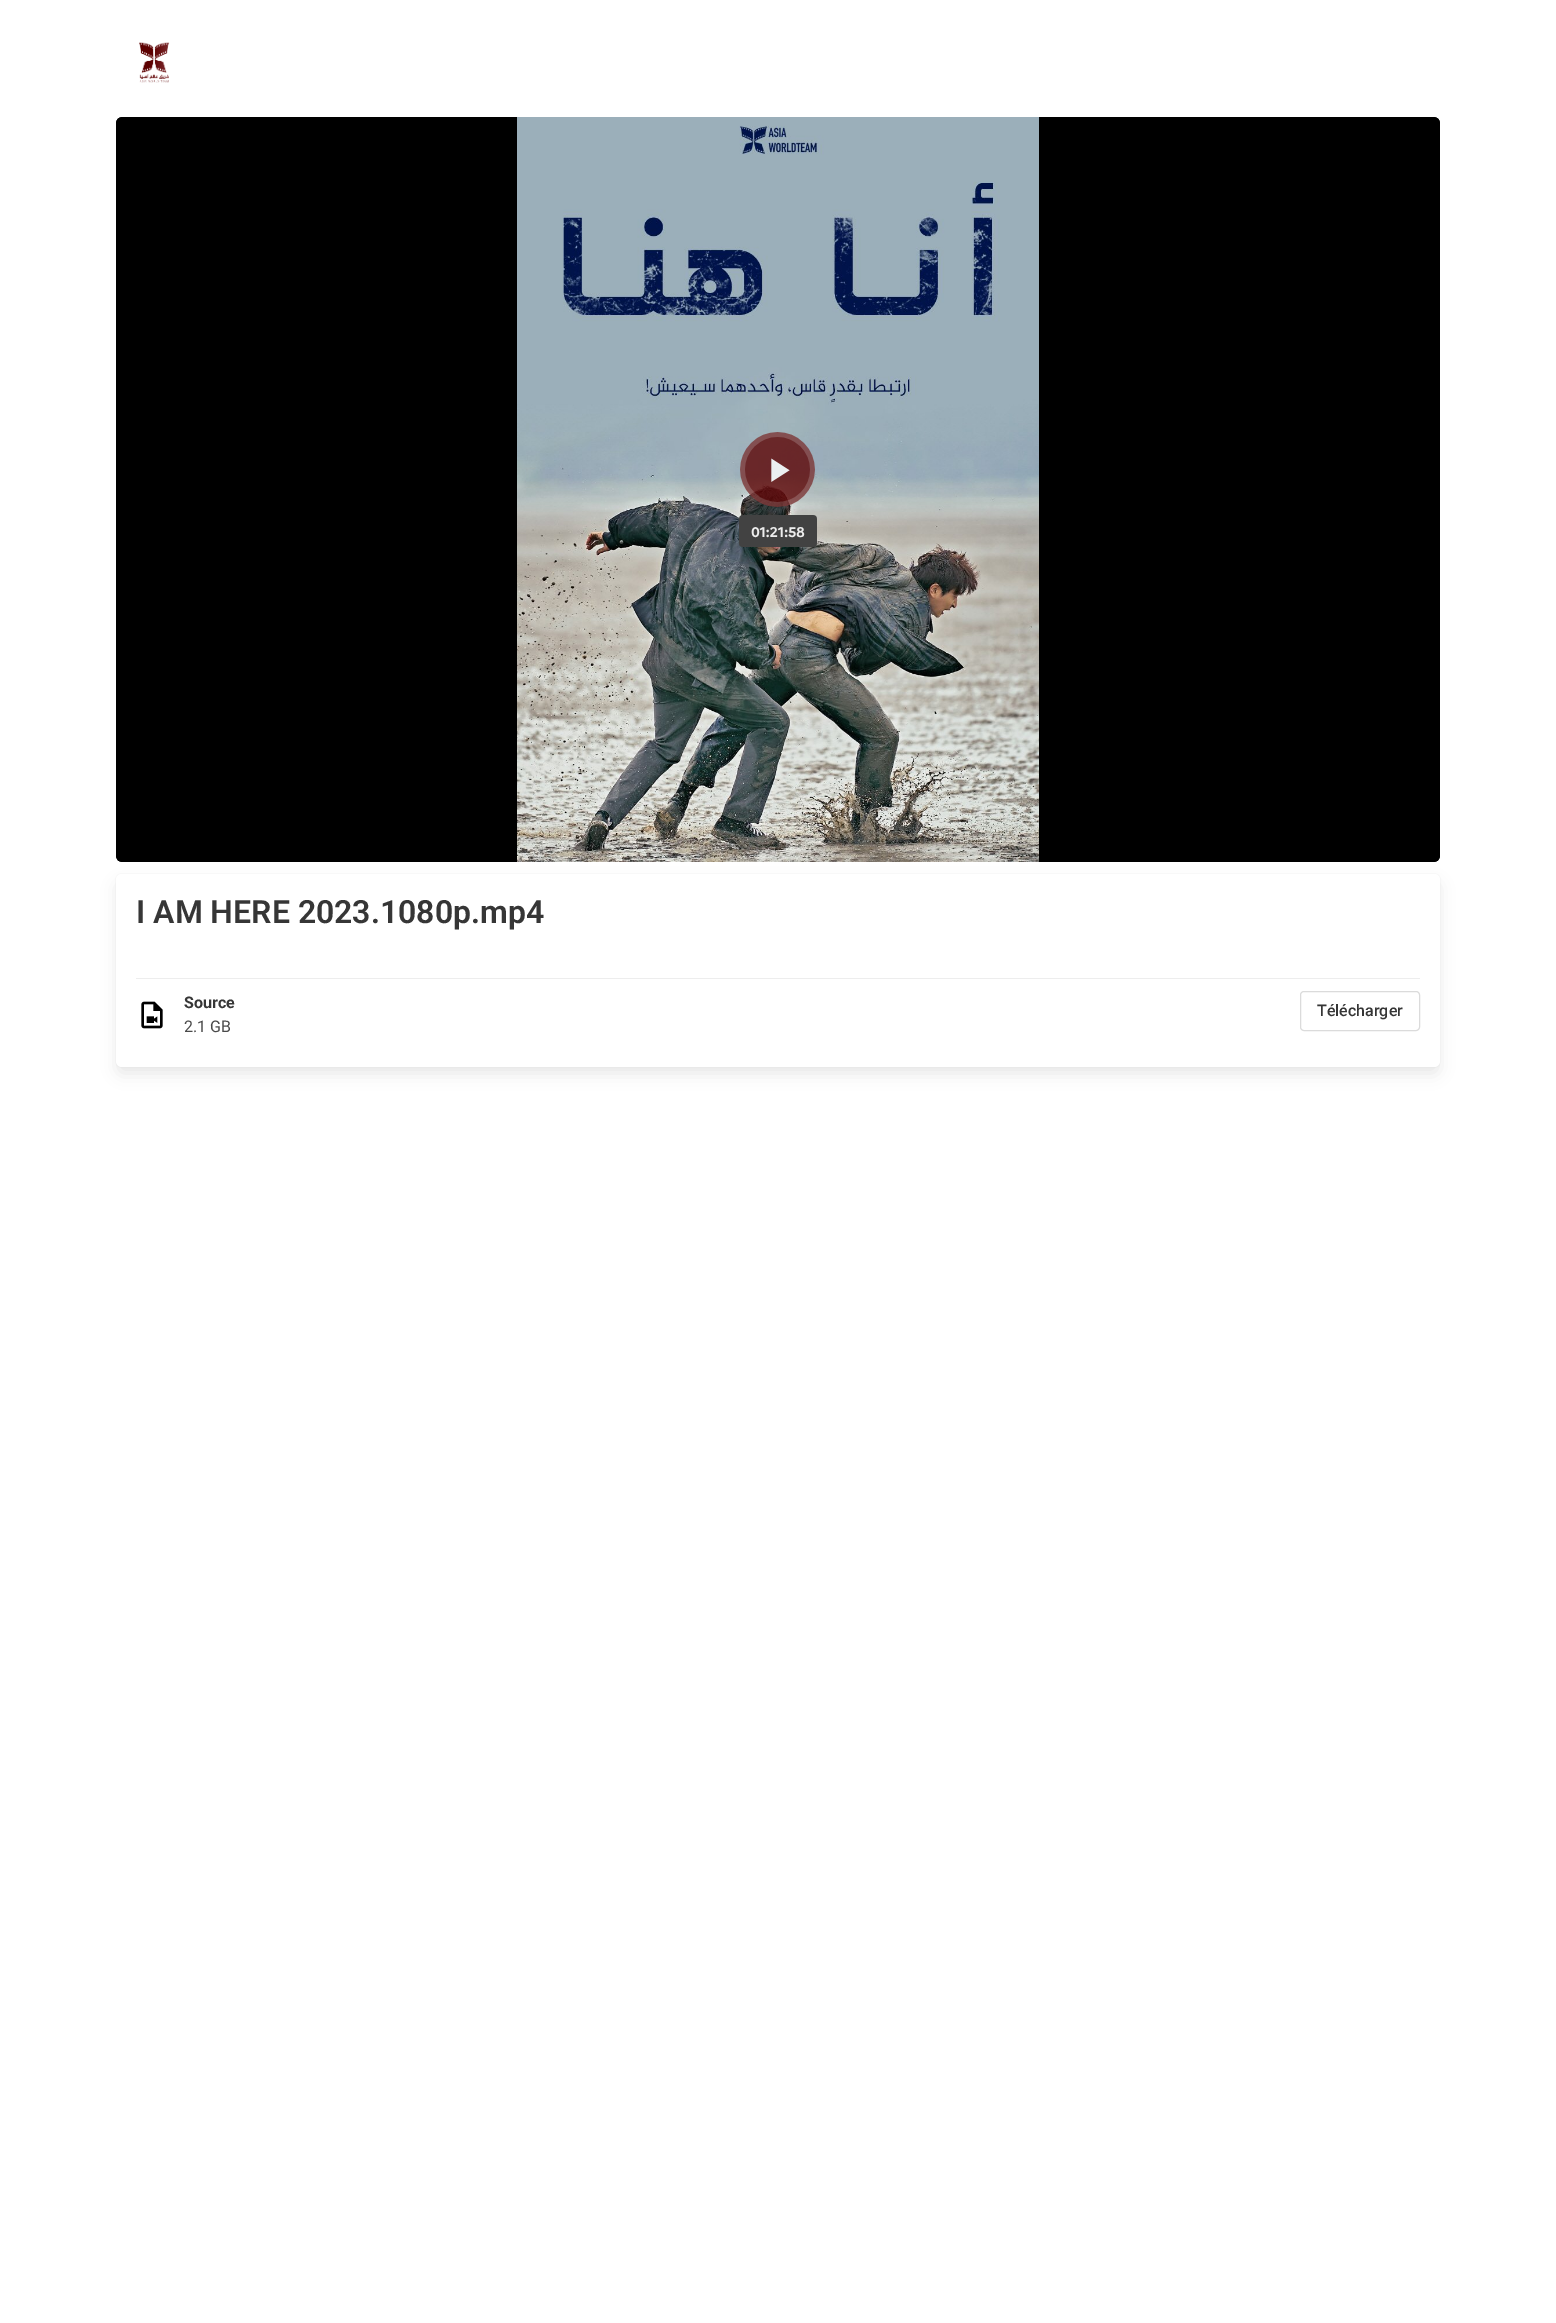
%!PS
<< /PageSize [1556 2323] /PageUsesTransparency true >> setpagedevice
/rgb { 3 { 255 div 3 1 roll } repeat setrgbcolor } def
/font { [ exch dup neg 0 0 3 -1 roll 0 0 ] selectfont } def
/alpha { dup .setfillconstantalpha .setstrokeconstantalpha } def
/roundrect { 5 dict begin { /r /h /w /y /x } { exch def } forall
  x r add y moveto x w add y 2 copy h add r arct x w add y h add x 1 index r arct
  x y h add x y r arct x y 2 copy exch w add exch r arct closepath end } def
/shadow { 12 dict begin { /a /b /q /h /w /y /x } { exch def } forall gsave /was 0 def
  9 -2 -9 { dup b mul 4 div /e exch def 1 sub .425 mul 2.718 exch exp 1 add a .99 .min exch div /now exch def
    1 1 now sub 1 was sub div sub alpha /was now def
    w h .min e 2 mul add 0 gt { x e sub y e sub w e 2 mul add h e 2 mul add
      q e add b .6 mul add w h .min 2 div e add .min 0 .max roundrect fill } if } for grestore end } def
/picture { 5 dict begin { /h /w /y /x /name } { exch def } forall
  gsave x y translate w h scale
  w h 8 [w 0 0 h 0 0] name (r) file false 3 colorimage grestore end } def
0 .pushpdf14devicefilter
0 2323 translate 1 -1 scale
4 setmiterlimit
255 255 255 rgb
0 0 1556 2323 rectfill
(img/1.rgb) 139 42 31 41 picture
250 250 250 rgb
115.5 873.5 1325 194 6.5 roundrect stroke
10 10 10 rgb
118 884 1320 189 4 8 0.1 shadow
(img/2.rgb) 116 117 1324 745 picture
255 255 255 rgb
116 874 1324 193 6 roundrect fill
237 237 237 rgb
136 978 1284 1 rectfill
(img/3.rgb) 141 1001 22 28 picture
219 219 219 rgb
1300.5 991.5 119 39 3.5 roundrect stroke
/Roboto-SemiBold 32 font
54 54 54 rgb
136 923 moveto (I AM HERE 2023.1080p.mp4) show
/Roboto-Bold 16 font
184 1008 moveto (Source) show
/Roboto-Regular 16 font
74 74 74 rgb
184 1032 moveto (2.1 GB) show
/Roboto-Medium 16 font
54 54 54 rgb
1317 1016 moveto (Télécharger) show
.poppdf14devicefilter showpage
